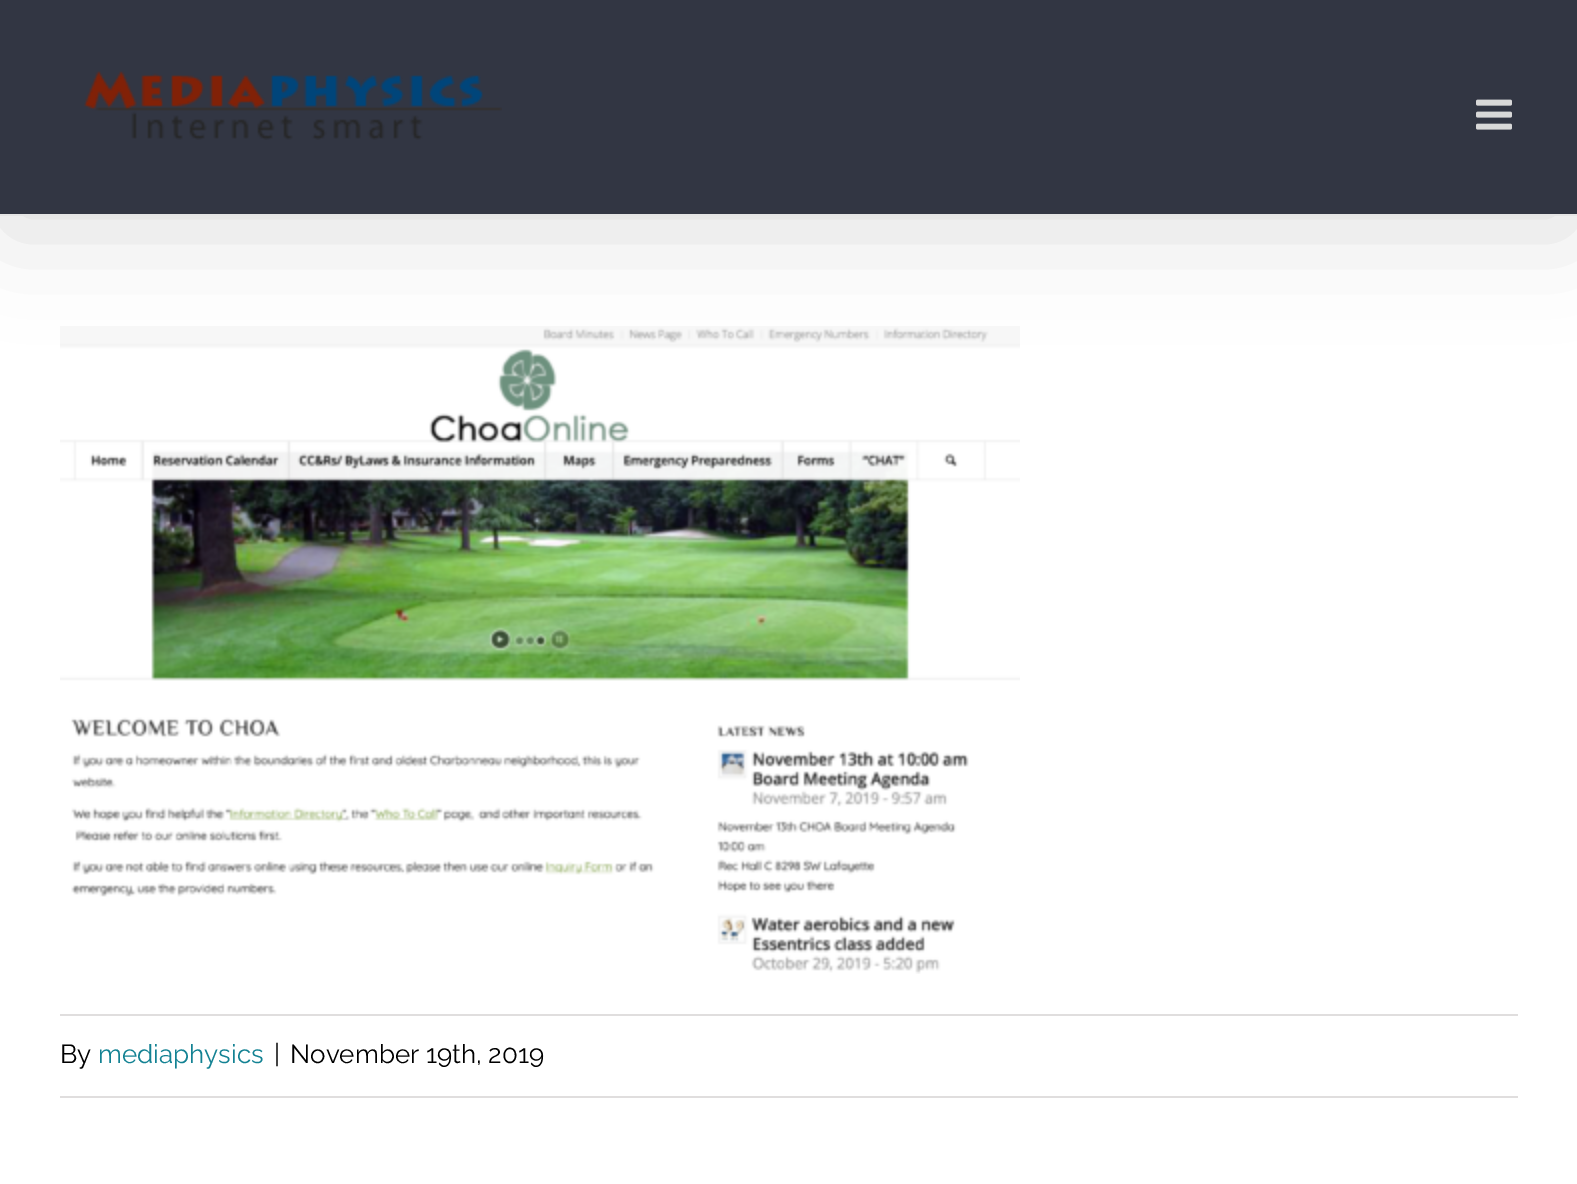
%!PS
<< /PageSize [1577 1184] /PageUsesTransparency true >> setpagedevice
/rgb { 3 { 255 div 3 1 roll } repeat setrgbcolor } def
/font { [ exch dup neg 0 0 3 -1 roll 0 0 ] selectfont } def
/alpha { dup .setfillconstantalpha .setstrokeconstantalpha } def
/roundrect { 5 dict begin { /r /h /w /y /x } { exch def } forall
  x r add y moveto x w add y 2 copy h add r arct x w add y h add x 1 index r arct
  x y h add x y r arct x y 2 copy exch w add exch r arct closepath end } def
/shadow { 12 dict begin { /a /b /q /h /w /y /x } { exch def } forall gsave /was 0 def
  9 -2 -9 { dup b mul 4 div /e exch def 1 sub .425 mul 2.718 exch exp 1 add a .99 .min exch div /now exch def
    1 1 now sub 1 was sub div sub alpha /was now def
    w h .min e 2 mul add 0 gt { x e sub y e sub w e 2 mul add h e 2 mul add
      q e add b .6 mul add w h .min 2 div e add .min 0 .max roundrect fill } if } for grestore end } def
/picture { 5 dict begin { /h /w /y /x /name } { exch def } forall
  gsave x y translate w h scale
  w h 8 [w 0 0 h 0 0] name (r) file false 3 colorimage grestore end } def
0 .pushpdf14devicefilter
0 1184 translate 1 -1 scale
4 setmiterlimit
255 255 255 rgb
0 0 1577 1184 rectfill
(img/3.rgb) 60 326 960 648 picture
0 0 0 rgb
4 24 1570 208 0 50 0.14 shadow
50 54 67 rgb
0 0 1577 214 rectfill
229 229 229 rgb
0 214 1577 2 rectfill
(img/1.rgb) 84 71 418 69 picture
(img/2.rgb) 1476 99 36 31 picture
224 222 222 rgb
60 1014 1458 2 rectfill
60 1096 1458 2 rectfill
/Raleway-Regular 26 font
0 0 0 rgb
60 1063 moveto (By) show
19 130 147 rgb
98 1063 moveto (mediaphysics) show
0 0 0 rgb
274 1063 moveto (|) show
290 1063 moveto (November 19th, 2019) show
.poppdf14devicefilter showpage
